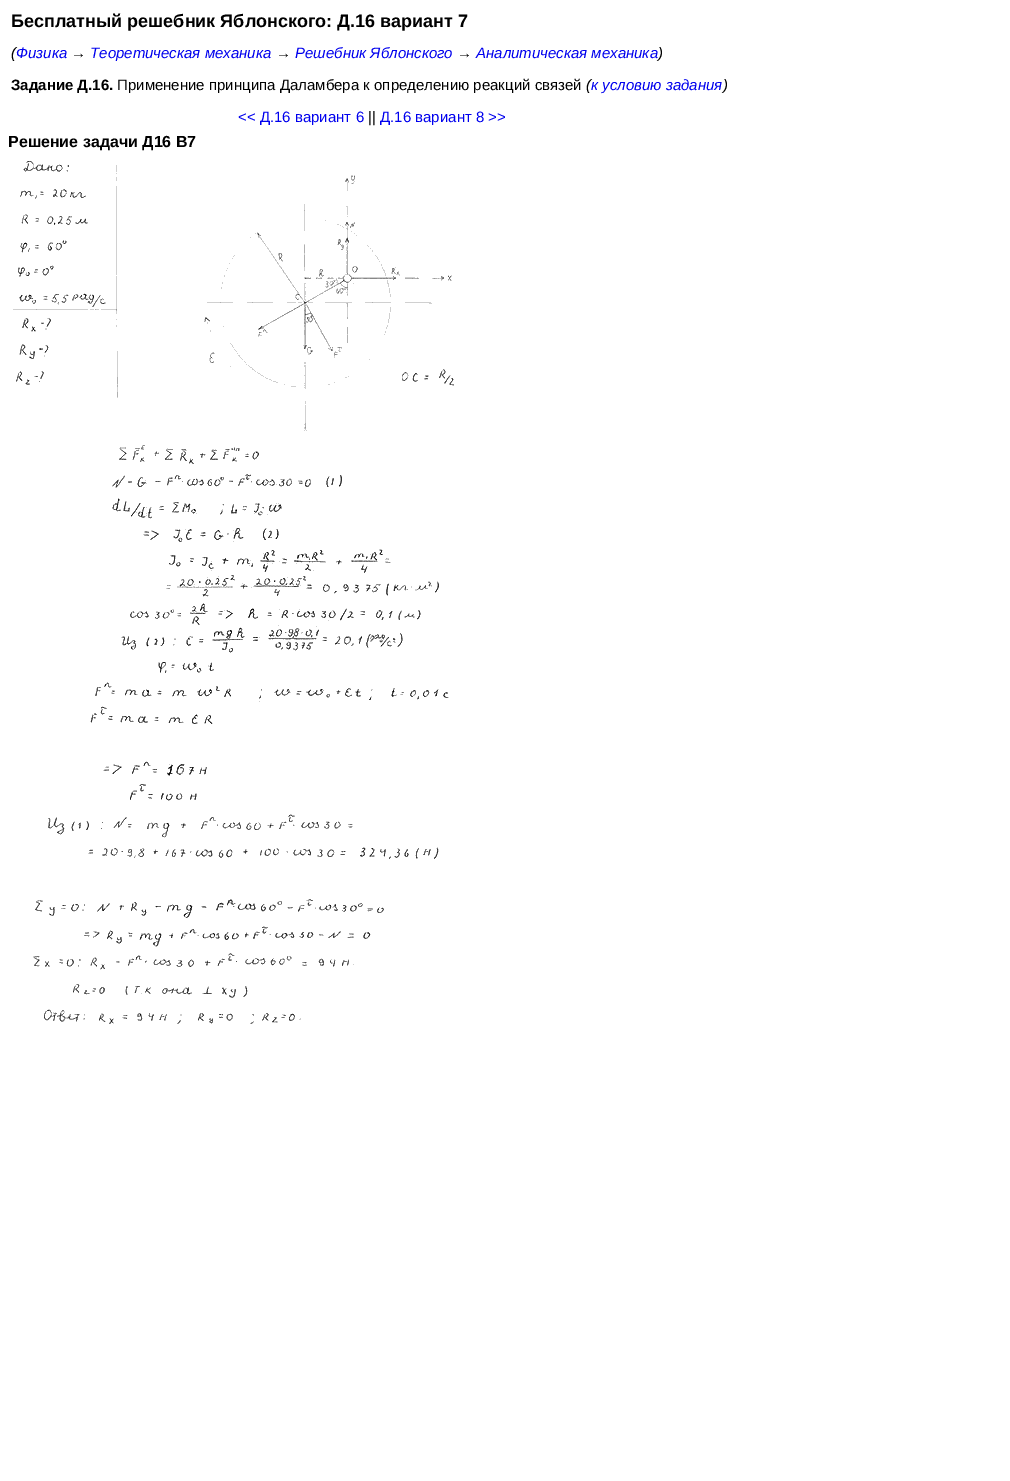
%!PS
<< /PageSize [1010 1481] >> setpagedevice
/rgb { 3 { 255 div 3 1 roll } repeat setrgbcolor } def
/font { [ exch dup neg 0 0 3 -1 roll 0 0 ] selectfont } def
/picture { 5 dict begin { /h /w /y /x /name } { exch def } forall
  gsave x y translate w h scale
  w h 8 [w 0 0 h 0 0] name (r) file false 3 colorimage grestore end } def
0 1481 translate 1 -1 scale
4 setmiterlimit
255 255 255 rgb
0 0 1010 1481 rectfill
(img/1.rgb) 13 161 441 863 picture
/LiberationSans-Bold 18 font
0 0 0 rgb
11 27 moveto (Бесплатный решебник Яблонского: Д.16 вариант 7) show
/LiberationSans-Italic 15 font
11 58 moveto (\() show
0 0 238 rgb
16 58 moveto (Физика) show
0 0 0 rgb
71 58 moveto (→) show
0 0 238 rgb
90 58 moveto (Теоретическая механика) show
0 0 0 rgb
276 58 moveto (→) show
0 0 238 rgb
295 58 moveto (Решебник Яблонского) show
0 0 0 rgb
457 58 moveto (→) show
0 0 238 rgb
476 58 moveto (Аналитическая механика) show
0 0 0 rgb
658 58 moveto (\)) show
/LiberationSans-Bold 15 font
11 90 moveto (Задание Д.16.) show
/LiberationSans-Regular 15 font
117 90 moveto (Применение принципа Даламбера к определению реакций связей) show
/LiberationSans-Italic 15 font
586 90 moveto (\() show
0 0 238 rgb
591 90 moveto (к условию задания) show
0 0 0 rgb
723 90 moveto (\)) show
/LiberationSans-Regular 15 font
0 0 238 rgb
238 122 moveto (<< Д.16 вариант 6) show
0 0 0 rgb
368 122 moveto (||) show
0 0 238 rgb
380 122 moveto (Д.16 вариант 8 >>) show
/LiberationSans-Bold 16 font
0 0 0 rgb
8 147 moveto (Решение задачи Д16 В7) show
showpage
